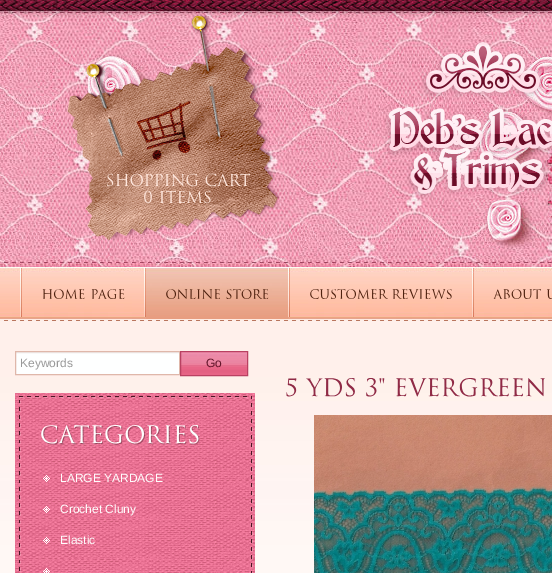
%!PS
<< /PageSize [552 573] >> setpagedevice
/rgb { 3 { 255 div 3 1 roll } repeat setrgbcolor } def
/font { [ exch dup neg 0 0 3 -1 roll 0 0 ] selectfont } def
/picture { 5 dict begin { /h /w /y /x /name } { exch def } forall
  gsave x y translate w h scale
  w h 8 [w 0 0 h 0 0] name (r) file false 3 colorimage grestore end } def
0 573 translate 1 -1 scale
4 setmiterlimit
255 255 255 rgb
0 0 552 573 rectfill
(img/1.rgb) 0 321 552 252 picture
(img/2.rgb) 0 0 552 321 picture
(img/3.rgb) 67 14 213 226 picture
(img/4.rgb) 107 173 92 14 picture
(img/5.rgb) 205 173 46 14 picture
(img/6.rgb) 144 190 8 14 picture
(img/7.rgb) 160 190 51 14 picture
(img/8.rgb) 385 41 167 157 picture
(img/9.rgb) 20 267 2 52 picture
(img/9.rgb) 144 267 2 52 picture
(img/10.rgb) 42 289 43 10 picture
(img/11.rgb) 91 289 34 10 picture
(img/9.rgb) 288 267 2 52 picture
(img/12.rgb) 146 267 142 52 picture
(img/13.rgb) 166 289 54 10 picture
(img/14.rgb) 226 289 43 10 picture
(img/9.rgb) 472 267 2 52 picture
(img/15.rgb) 310 289 78 10 picture
(img/16.rgb) 392 289 60 10 picture
(img/17.rgb) 493 289 48 10 picture
(img/18.rgb) 547 289 5 10 picture
254 255 255 rgb
16 354 163 20 rectfill
(img/19.rgb) 16 352 163 2 picture
223 183 170 rgb
15.5 351.5 164 23 rectstroke
(img/20.rgb) 181 352 66 23 picture
185 65 98 rgb
180.5 351.5 67 24 rectstroke
(img/21.rgb) 15 393 240 6 picture
(img/22.rgb) 15 399 240 174 picture
(img/23.rgb) 41 425 159 20 picture
(img/24.rgb) 43 475 7 7 picture
(img/25.rgb) 43 506 7 7 picture
(img/26.rgb) 43 537 7 7 picture
(img/27.rgb) 43 568 7 5 picture
(img/28.rgb) 286 378 11 19 picture
(img/29.rgb) 306 378 49 19 picture
(img/30.rgb) 366 378 19 19 picture
(img/31.rgb) 396 378 149 19 picture
(img/32.rgb) 314 415 238 158 picture
/LiberationSans-Regular 12 font
153 153 153 rgb
20 367 moveto (Keywords) show
99 21 43 rgb
206 367 moveto (Go) show
254 254 254 rgb
[
  [(LARGE YARDAGE) 60 482]
  [(Crochet Cluny) 60 513]
  [(Elastic) 60 544]
] { aload pop moveto show } forall
showpage
